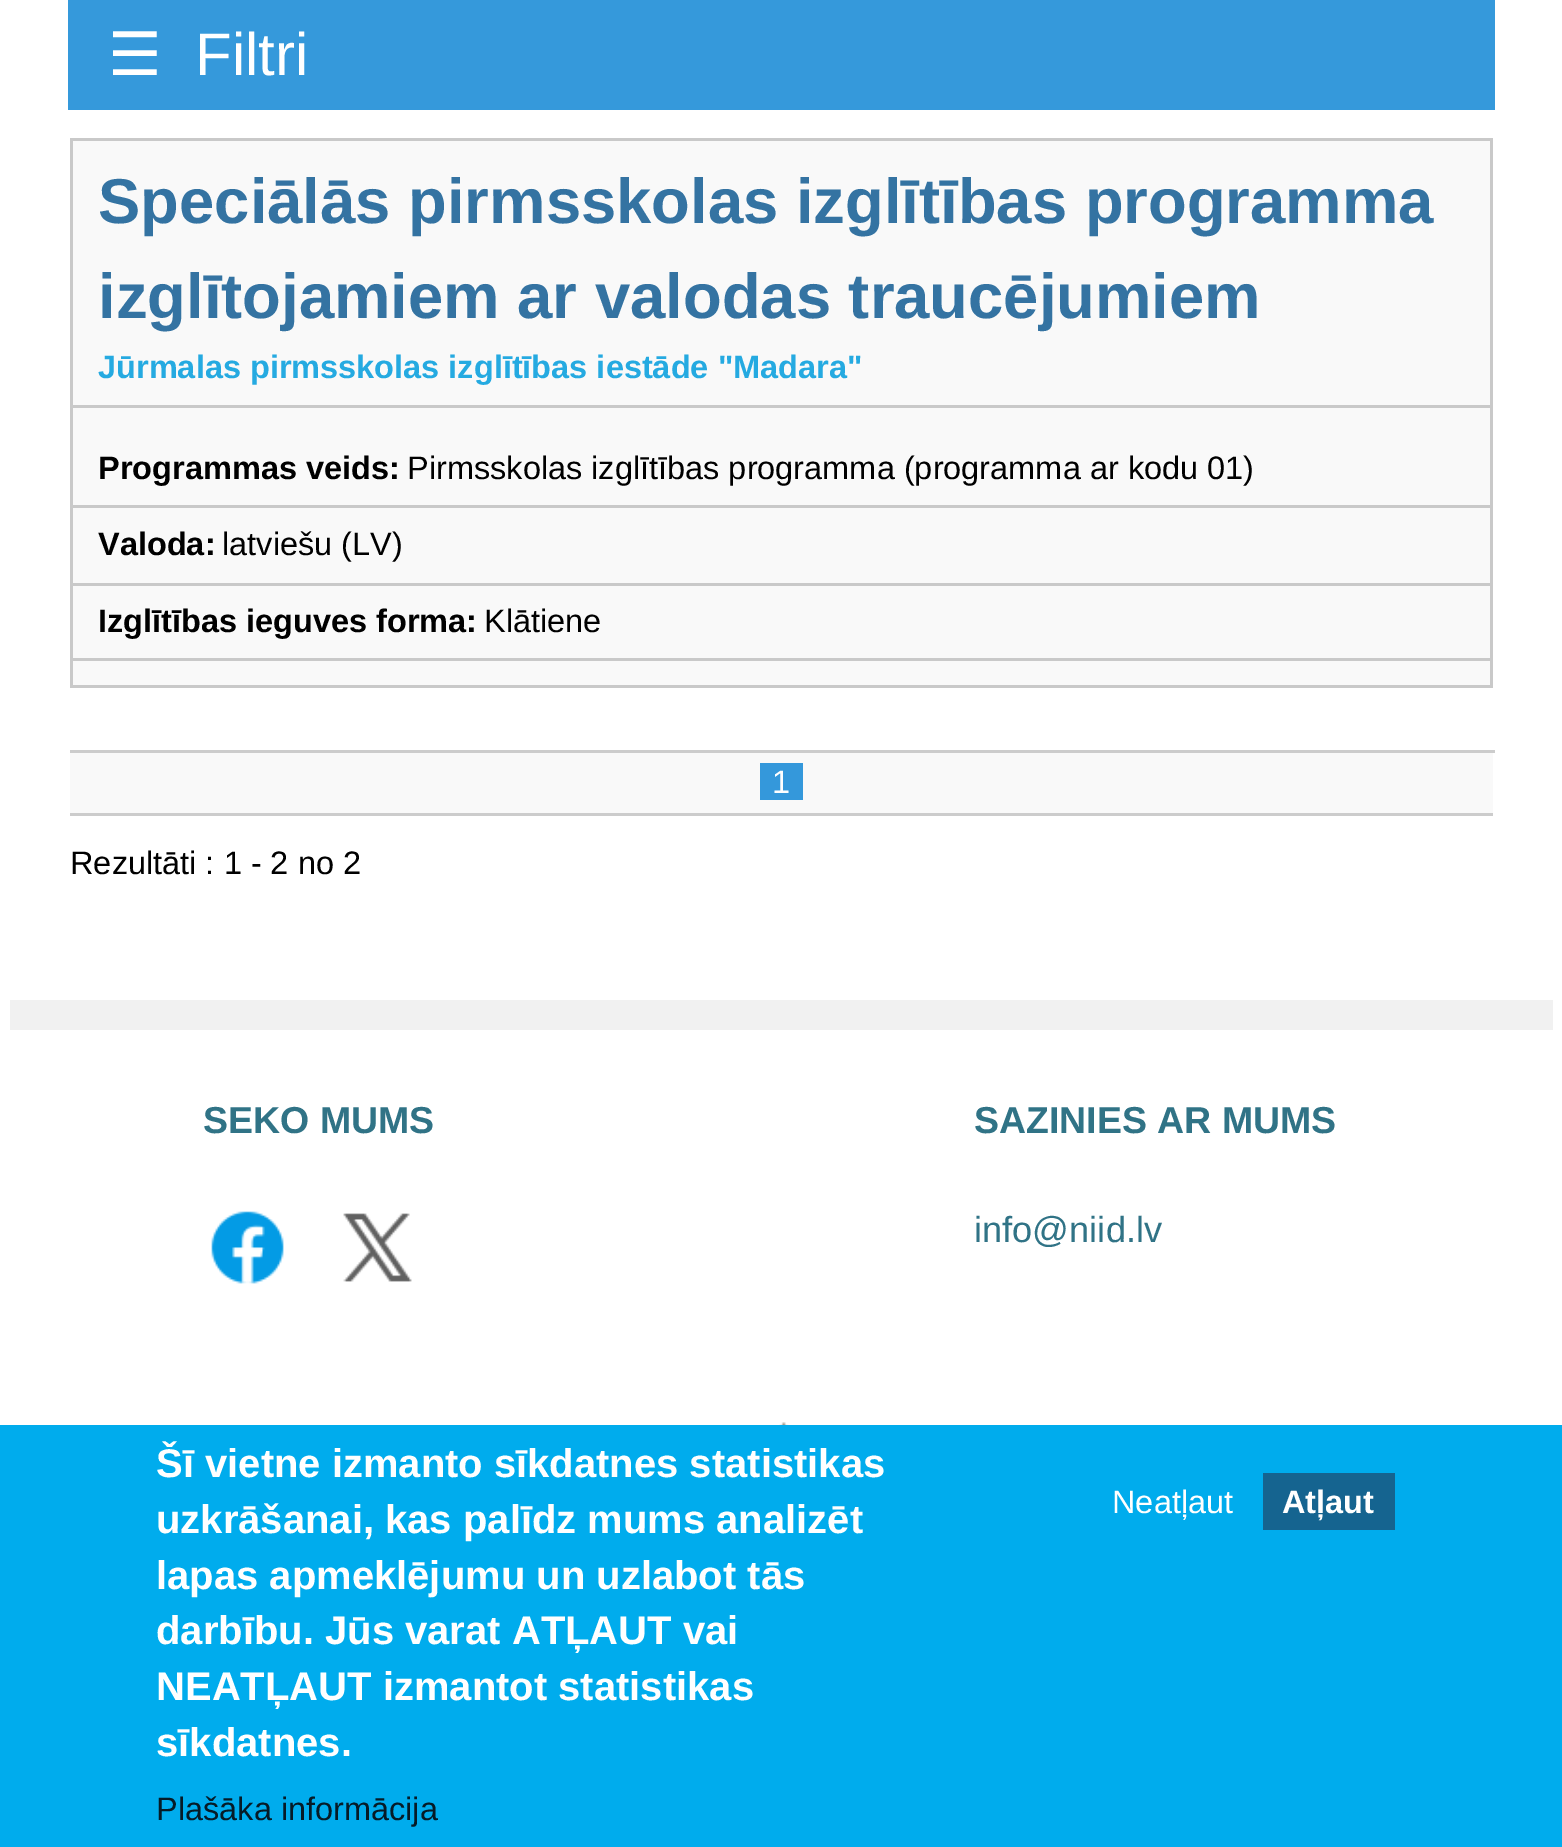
%!PS
<< /PageSize [1562 1847] >> setpagedevice
/rgb { 3 { 255 div 3 1 roll } repeat setrgbcolor } def
/font { [ exch dup neg 0 0 3 -1 roll 0 0 ] selectfont } def
/picture { 5 dict begin { /h /w /y /x /name } { exch def } forall
  gsave x y translate w h scale
  w h 8 [w 0 0 h 0 0] name (r) file false 3 colorimage grestore end } def
0 1847 translate 1 -1 scale
4 setmiterlimit
255 255 255 rgb
0 0 1562 1847 rectfill
[
  [68 0 1427 110 53 153 219]
  [73 141 1417 264 249 249 249]
  [70 138 1423 3 201 201 201]
  [70 405 1423 3 201 201 201]
  [70 505 1423 3 201 201 201]
  [70 583 1423 3 201 201 201]
  [70 658 1423 3 201 201 201]
  [1490 658 3 30 201 201 201]
  [1490 583 3 77 201 201 201]
  [1490 505 3 80 201 201 201]
  [1490 405 3 103 201 201 201]
  [1490 138 3 270 201 201 201]
  [70 685 1423 3 201 201 201]
  [70 658 3 30 201 201 201]
  [70 583 3 77 201 201 201]
  [70 505 3 80 201 201 201]
  [70 405 3 103 201 201 201]
  [70 138 3 270 201 201 201]
  [73 408 1417 97 249 249 249]
  [73 508 1417 75 249 249 249]
  [73 586 1417 72 249 249 249]
  [73 661 1417 24 249 249 249]
  [70 813 1423 3 204 204 204]
  [70 750 1425 3 204 204 204]
  [70 753 1423 60 249 249 249]
  [760 763 43 37 52 152 219]
  [10 1000 1543 30 241 241 241]
] { aload pop rgb rectfill } forall
(img/1.rgb) 211 1211 73 73 picture
(img/2.rgb) 343 1213 69 69 picture
(img/3.rgb) 567 1422 431 3 picture
0 172 237 rgb
0 1425 1562 422 rectfill
21 100 144 rgb
1263 1473 132 57 rectfill
/DejaVuSans-Regular 60 font
255 255 255 rgb
108 75 moveto (☰) show
/LiberationSans-Regular 60 font
195 75 moveto (Filtri) show
/LiberationSans-Bold 63.4 font
52 115 162 rgb
98 223 moveto (Speciālās pirmsskolas izglītības programma) show
98 318 moveto (izglītojamiem ar valodas traucējumiem) show
/LiberationSans-Bold 32.5 font
37 170 225 rgb
98 378 moveto (Jūrmalas pirmsskolas izglītības iestāde "Madara") show
0 0 0 rgb
98 479 moveto (Programmas veids:) show
/LiberationSans-Regular 32.5 font
407 479 moveto (Pirmsskolas izglītības programma \(programma ar kodu 01\)) show
/LiberationSans-Bold 32.5 font
98 555 moveto (Valoda:) show
/LiberationSans-Regular 32.5 font
222 555 moveto (latviešu \(LV\)) show
/LiberationSans-Bold 32.5 font
98 632 moveto (Izglītības ieguves forma:) show
/LiberationSans-Regular 32.5 font
484 632 moveto (Klātiene) show
255 255 255 rgb
772 793 moveto (1) show
0 0 0 rgb
70 874 moveto (Rezultāti : 1 - 2 no 2) show
/LiberationSans-Bold 37.5 font
48 115 134 rgb
203 1133 moveto (SEKO MUMS) show
974 1133 moveto (SAZINIES AR MUMS) show
/LiberationSans-Regular 36.25 font
974 1242 moveto (info@niid.lv) show
/LiberationSans-Bold 40 font
255 255 255 rgb
[
  [(Šī vietne izmanto sīkdatnes statistikas) 156 1477]
  [(uzkrāšanai, kas palīdz mums analizēt) 156 1533]
  [(lapas apmeklējumu un uzlabot tās) 156 1589]
  [(darbību. Jūs varat ATĻAUT vai) 156 1644]
  [(NEATĻAUT izmantot statistikas) 156 1700]
  [(sīkdatnes.) 156 1756]
] { aload pop moveto show } forall
/LiberationSans-Regular 32.5 font
6 27 39 rgb
156 1820 moveto (Plašāka informācija) show
255 255 255 rgb
1112 1513 moveto (Neatļaut) show
/LiberationSans-Bold 32.5 font
1282 1513 moveto (Atļaut) show
showpage
